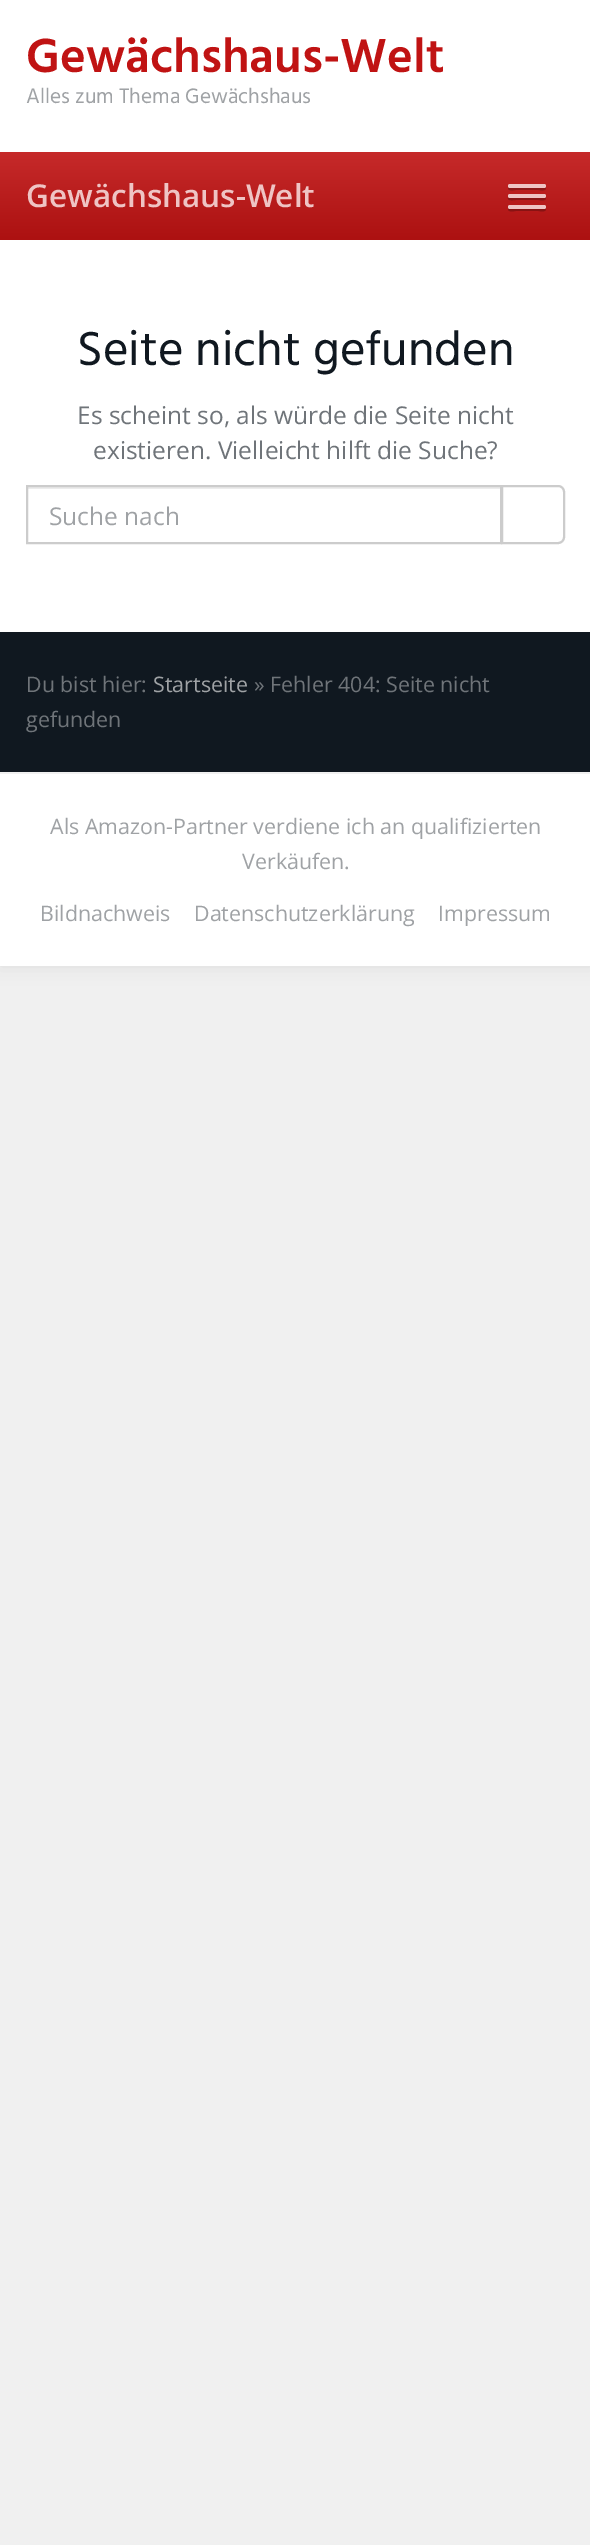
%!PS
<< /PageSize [590 2545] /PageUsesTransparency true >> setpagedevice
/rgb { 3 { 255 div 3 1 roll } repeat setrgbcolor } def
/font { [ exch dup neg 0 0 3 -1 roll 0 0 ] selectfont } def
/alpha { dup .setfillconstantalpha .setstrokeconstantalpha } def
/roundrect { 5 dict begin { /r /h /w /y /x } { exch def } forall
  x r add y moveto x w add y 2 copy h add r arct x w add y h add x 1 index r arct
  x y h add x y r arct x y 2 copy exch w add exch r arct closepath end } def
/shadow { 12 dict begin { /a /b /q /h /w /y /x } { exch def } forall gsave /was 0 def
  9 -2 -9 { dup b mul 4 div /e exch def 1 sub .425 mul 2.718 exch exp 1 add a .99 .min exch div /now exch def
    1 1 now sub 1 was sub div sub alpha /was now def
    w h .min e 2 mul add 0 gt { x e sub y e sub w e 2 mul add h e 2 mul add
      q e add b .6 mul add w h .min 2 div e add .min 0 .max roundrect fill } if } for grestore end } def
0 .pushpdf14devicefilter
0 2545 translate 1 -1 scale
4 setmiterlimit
240 240 240 rgb
0 0 590 2545 rectfill
221 221 221 rgb
0 0 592 966 0 9 1 shadow
255 255 255 rgb
0 0 590 966 rectfill
gsave 0 152 moveto 590 152 lineto 590 240 lineto 0 240 lineto closepath clip newpath
<< /ShadingType 2 /ColorSpace /DeviceRGB /Coords [296 152 296 240] /Extend [true true] /Function << /FunctionType 2 /Domain [0 1] /C0 [0.776 0.165 0.165] /C1 [0.675 0.067 0.067] /N 1 >> >> shfill grestore
140 24 24 rgb
508.5 187 moveto 508 188.5 lineto 508.5 191.5 515 190 515.5 190 curveto 538.5 190 lineto 539 190 545.5 191.5 546 188.5 curveto 546 188 546 187 545.5 186.5 curveto 544 187 lineto 540 187.5 509.5 188 508.5 187 curveto closepath fill
239 196 196 rgb
508 184 38 4 2 roundrect fill
138 22 22 rgb
508 197.5 moveto 506.5 201.5 515 200 515.5 200 curveto 538.5 200 lineto 539 200 545.5 201.5 546 198.5 curveto 545.5 197 lineto 545 197.5 lineto 509 197.5 lineto closepath fill
239 196 196 rgb
508 194 38 4 2 roundrect fill
136 19 19 rgb
508.5 208 moveto 508 209.5 lineto 508.5 212.5 515 211 515.5 211 curveto 538.5 211 lineto 539 211 545.5 212.5 546 209.5 curveto 546 209 546 208 545.5 207.5 curveto 544 208 lineto 540 208.5 509.5 209 508.5 208 curveto closepath fill
239 196 196 rgb
508 205 38 4 2 roundrect fill
236 236 236 rgb
28 487 473 2 rectfill
204 204 204 rgb
2 setlinewidth
27 486 474 57 rectstroke
255 255 255 rgb
502 486 moveto 558 486 lineto 561.5 486 564 488.5 564 492 curveto 564 537 lineto 564 540.5 561.5 543 558 543 curveto 502 543 lineto closepath gsave fill grestore
204 204 204 rgb
stroke
16 24 32 rgb
0 632 590 140 rectfill
240 240 240 rgb
0 772 590 2 rectfill
/Hind-SemiBold 49 font
192 19 19 rgb
26 72 moveto (Gewächshaus-Welt) show
/Hind-Regular 21.4 font
159 162 165 rgb
26 103 moveto (Alles zum Thema Gewächshaus) show
/OpenSans-SemiBold 31.5 font
239 196 196 rgb
26 207 moveto (Gewächshaus-Welt) show
/Hind-Regular 49 font
16 24 32 rgb
77 365 moveto (Seite nicht gefunden) show
/OpenSans-Regular 24.5 font
111 116 121 rgb
77 424 moveto (Es scheint so, als würde die Seite nicht) show
93 459 moveto (existieren. Vielleicht hilft die Suche?) show
159 162 165 rgb
49 525 moveto (Suche nach) show
/OpenSans-Regular 21.4 font
111 116 121 rgb
26 692 moveto (Du bist hier:) show
159 162 165 rgb
153 692 moveto (Startseite) show
111 116 121 rgb
254 692 moveto (» Fehler 404: Seite nicht) show
26 727 moveto (gefunden) show
159 162 165 rgb
[
  [(Als Amazon-Partner verdiene ich an qualifizierten) 50 834]
  [(Verkäufen.) 242 869]
  [(Bildnachweis) 40 921]
  [(Datenschutzerklärung) 194 921]
  [(Impressum) 438 921]
] { aload pop moveto show } forall
.poppdf14devicefilter showpage
